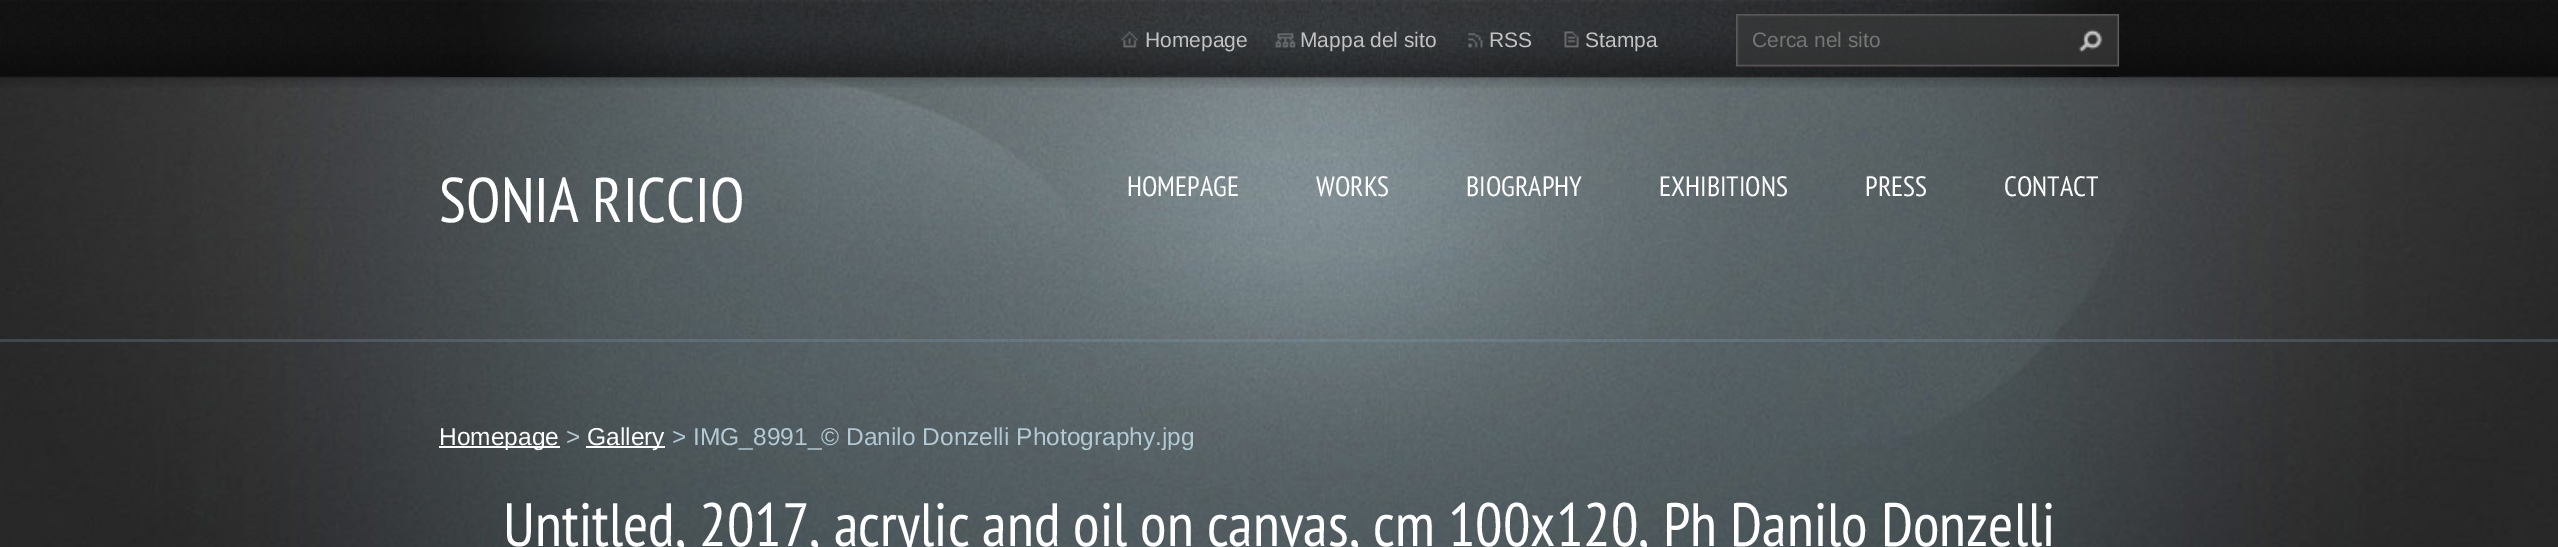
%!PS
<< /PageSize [2558 547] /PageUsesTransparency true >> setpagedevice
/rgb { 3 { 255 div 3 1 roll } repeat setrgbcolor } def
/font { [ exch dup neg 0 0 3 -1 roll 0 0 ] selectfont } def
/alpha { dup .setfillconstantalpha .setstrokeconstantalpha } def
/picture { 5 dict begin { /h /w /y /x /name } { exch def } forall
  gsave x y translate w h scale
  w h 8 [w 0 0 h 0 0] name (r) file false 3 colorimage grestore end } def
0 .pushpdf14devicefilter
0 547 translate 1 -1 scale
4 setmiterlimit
255 255 255 rgb
0 0 2558 547 rectfill
(img/1.rgb) 0 76 2558 471 picture
0.26 alpha
131 158 185 rgb
0 339 2558 3 rectfill
1 alpha
(img/2.rgb) 0 0 2558 88 picture
(img/3.rgb) 439 0 1680 77 picture
(img/4.rgb) 1121 31 17 17 picture
(img/5.rgb) 1275 33 21 15 picture
(img/6.rgb) 1468 33 15 15 picture
(img/7.rgb) 1564 31 15 17 picture
(img/8.rgb) 1736 14 384 53 picture
(img/9.rgb) 2078 29 25 24 picture
255 255 255 rgb
439 446 121 2 rectfill
586 446 79 2 rectfill
/LiberationSans-Regular 21 font
195 195 195 rgb
[
  [(Homepage) 1145 47]
  [(Mappa del sito) 1300 47]
  [(RSS) 1489 47]
  [(Stampa) 1585 47]
] { aload pop moveto show } forall
117 117 117 rgb
1752 47 moveto (Cerca nel sito) show
/PTSansNarrow-Regular 63 font
255 255 255 rgb
439 222 moveto (SONIA RICCIO) show
/PTSansNarrow-Regular 28 font
[
  [(HOMEPAGE) 1127 196]
  [(WORKS) 1316 196]
  [(BIOGRAPHY) 1466 196]
  [(EXHIBITIONS) 1659 196]
  [(PRESS) 1865 196]
  [(CONTACT) 2004 196]
] { aload pop moveto show } forall
/LiberationSans-Regular 24.5 font
439 445 moveto (Homepage) show
179 201 211 rgb
566 445 moveto (>) show
255 255 255 rgb
587 445 moveto (Gallery) show
179 201 211 rgb
672 445 moveto (> IMG_8991_© Danilo Donzelli Photography.jpg) show
/PTSansNarrow-Regular 61.25 font
255 255 255 rgb
503 546 moveto (Untitled, 2017, acrylic and oil on canvas, cm 100x120, Ph Danilo Donzelli) show
.poppdf14devicefilter showpage
